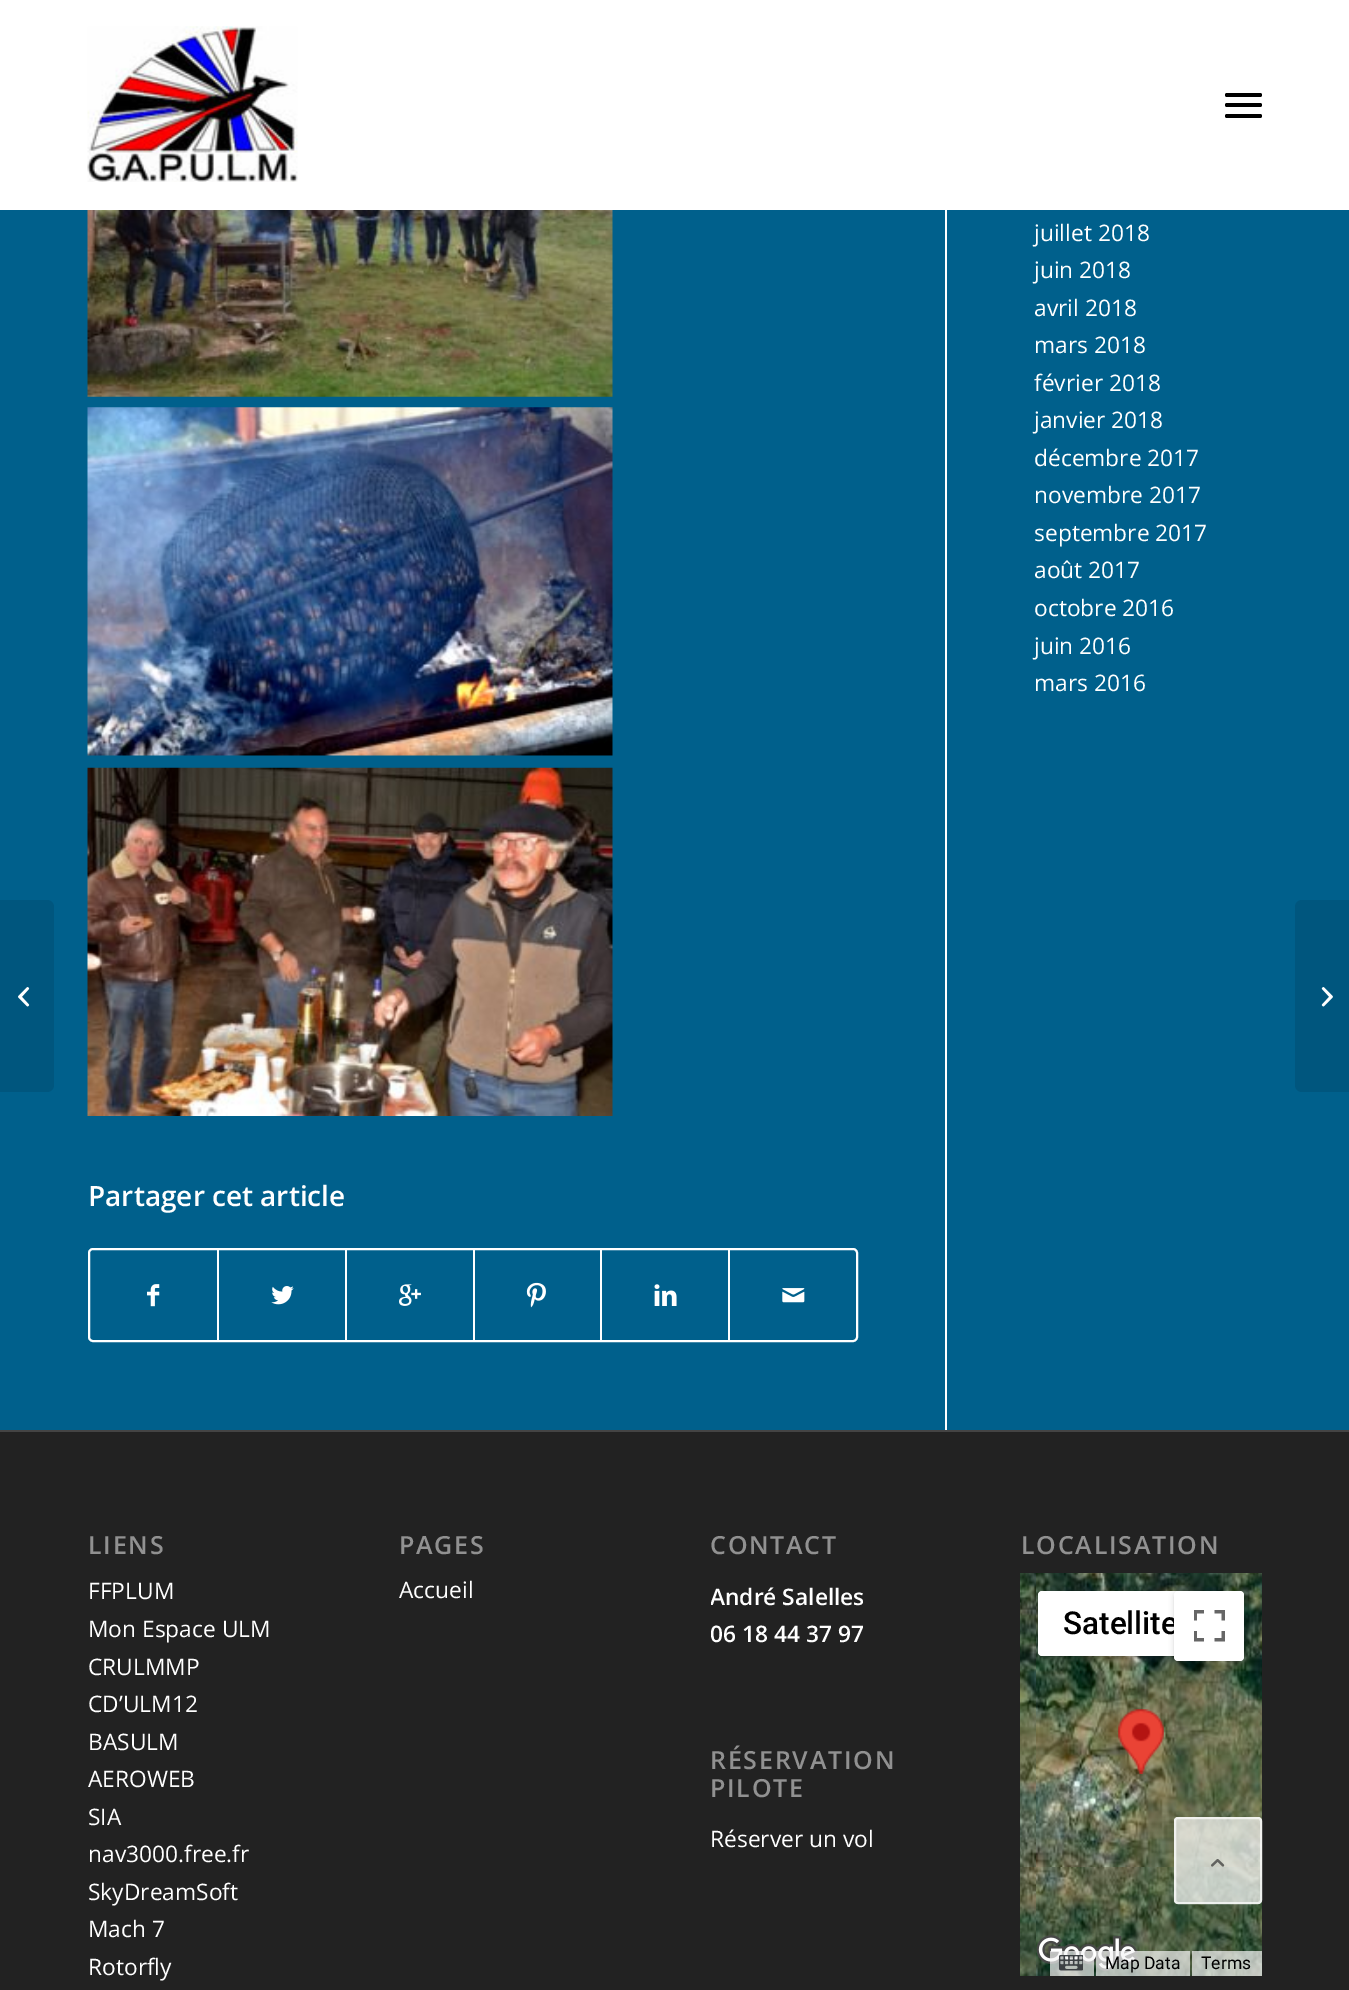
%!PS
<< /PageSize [1349 1990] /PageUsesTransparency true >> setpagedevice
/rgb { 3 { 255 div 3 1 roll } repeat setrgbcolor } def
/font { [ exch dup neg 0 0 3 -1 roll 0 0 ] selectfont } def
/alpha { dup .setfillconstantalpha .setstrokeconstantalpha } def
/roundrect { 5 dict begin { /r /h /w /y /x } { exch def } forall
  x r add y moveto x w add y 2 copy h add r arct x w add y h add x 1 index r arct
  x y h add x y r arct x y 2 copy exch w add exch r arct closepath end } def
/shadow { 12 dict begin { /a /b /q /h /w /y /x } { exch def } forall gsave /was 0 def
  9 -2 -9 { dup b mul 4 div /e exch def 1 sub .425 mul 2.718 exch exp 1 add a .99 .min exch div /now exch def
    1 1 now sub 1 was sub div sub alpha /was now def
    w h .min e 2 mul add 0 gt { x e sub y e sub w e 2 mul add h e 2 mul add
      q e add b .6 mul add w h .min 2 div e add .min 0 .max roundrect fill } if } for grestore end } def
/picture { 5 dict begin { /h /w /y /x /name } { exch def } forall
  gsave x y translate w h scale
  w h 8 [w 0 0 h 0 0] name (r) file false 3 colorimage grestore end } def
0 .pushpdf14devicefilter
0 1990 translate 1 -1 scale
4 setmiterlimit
0 96 140 rgb
0 0 1349 1990 rectfill
255 255 255 rgb
0 0 1349 210 rectfill
(img/1.rgb) 87 26 211 156 picture
0 0 0 rgb
1225 103 37 4 2 roundrect fill
1225 93 37 4 2 roundrect fill
1225 114 37 4 2 roundrect fill
0 86 126 rgb
0 900 moveto 47 900 lineto 51 900 54 903 54 907 curveto 54 1085 lineto 54 1089 51 1092 47 1092 curveto 0 1092 lineto closepath fill
(img/2.rgb) 18 987 12 20 picture
255 255 255 rgb
945 210 2 1220 rectfill
(img/3.rgb) 87 210 526 187 picture
(img/4.rgb) 87 407 526 349 picture
(img/5.rgb) 87 767 526 349 picture
2 setlinewidth
89 1249 768 92 4 roundrect stroke
(img/6.rgb) 147 1284 13 23 picture
217 1250 2 91 rectfill
(img/7.rgb) 271 1286 23 19 picture
345 1250 2 91 rectfill
(img/8.rgb) 399 1284 22 22 picture
473 1250 2 91 rectfill
(img/9.rgb) 526 1282 20 26 picture
600 1250 2 91 rectfill
(img/10.rgb) 654 1284 23 22 picture
728 1250 2 91 rectfill
(img/11.rgb) 782 1288 23 15 picture
34 34 34 rgb
0 1432 1349 558 rectfill
68 68 68 rgb
0 1430 1349 2 rectfill
(img/12.rgb) 1020 1573 16 294 picture
(img/13.rgb) 1036 1573 226 294 picture
(img/14.rgb) 1020 1867 16 109 picture
(img/15.rgb) 1036 1867 226 109 picture
(img/16.rgb) 1118 1709 46 65 picture
0 0 0 rgb
1040 1594 171 62 2 3.5 0.3 shadow
255 255 255 rgb
1038 1591 175 65 4 roundrect fill
0 0 0 rgb
1176 1594 67 67 2 3.5 0.3 shadow
(img/18.rgb) 1036 1935 102 36 picture
0.7 alpha
245 245 245 rgb
1050 1951 44 25 rectfill
1 alpha
(img/19.rgb) 1059 1955 24 16 picture
0.7 alpha
1096 1951 94 25 rectfill
1192 1951 70 25 rectfill
1 alpha
0 86 126 rgb
1302 900 moveto 1349 900 lineto 1349 1092 lineto 1302 1092 lineto 1298 1092 1295 1089 1295 1085 curveto 1295 907 lineto 1295 903 1298 900 1302 900 curveto closepath fill
(img/20.rgb) 1321 987 12 20 picture
0.7 alpha
255 255 255 rgb
1174 1817 88 87 4 roundrect fill
1175 1818 86 85 3 roundrect stroke
1 alpha
(img/21.rgb) 1211 1859 14 8 picture
/OpenSans-Regular 22.75 font
[
  [(juillet 2018) 1034 241]
  [(juin 2018) 1034 278]
  [(avril 2018) 1034 316]
  [(mars 2018) 1034 353]
  [(février 2018) 1034 391]
  [(janvier 2018) 1034 428]
  [(décembre 2017) 1034 466]
  [(novembre 2017) 1034 503]
  [(septembre 2017) 1034 541]
  [(août 2017) 1034 578]
  [(octobre 2016) 1034 616]
  [(juin 2016) 1034 654]
  [(mars 2016) 1034 691]
] { aload pop moveto show } forall
/OpenSans-SemiBold 28 font
88 1206 moveto (Partager cet article) show
/OpenSans-SemiBold 25 font
145 145 145 rgb
88 1554 moveto 1.75 0 (LIENS) ashow
/OpenSans-Regular 22.75 font
255 255 255 rgb
[
  [(FFPLUM) 88 1599]
  [(Mon Espace ULM) 88 1637]
  [(CRULMMP) 88 1675]
  [(CD’ULM12) 88 1712]
  [(BASULM) 88 1750]
  [(AEROWEB) 88 1787]
  [(SIA) 88 1825]
  [(nav3000.free.fr) 88 1862]
  [(SkyDreamSoft) 88 1900]
  [(Mach 7) 88 1937]
  [(Rotorfly) 88 1975]
] { aload pop moveto show } forall
/OpenSans-SemiBold 25 font
145 145 145 rgb
399 1554 moveto 1.75 0 (PAGES) ashow
/OpenSans-Regular 22.75 font
255 255 255 rgb
399 1598 moveto (Accueil) show
/OpenSans-SemiBold 25 font
145 145 145 rgb
710 1554 moveto 1.75 0 (CONTACT) ashow
gsave
711 1510 239 163 rectclip
/OpenSans-SemiBold 22.75 font
255 255 255 rgb
710 1605 moveto (André Salelles) show
710 1642 moveto (06 18 44 37 97) show
grestore
710 1769 moveto 1.75 0 (RÉSERVATION) ashow
710 1797 moveto 1.75 0 (PILOTE) ashow
/OpenSans-Regular 22.75 font
255 255 255 rgb
710 1847 moveto (Réserver un vol) show
/OpenSans-SemiBold 25 font
145 145 145 rgb
1021 1554 moveto 1.75 0 (LOCALISATION) ashow
/Roboto-Medium 31.5 font
0 0 0 rgb
1063 1634 moveto (Satellite) show
255 255 255 rgb
1174 1591 70 70 4 roundrect fill
(img/17.rgb) 1194 1610 31 32 picture
/Roboto-Regular 17.5 font
0 0 0 rgb
1105 1969 moveto (Map Data) show
1201 1969 moveto (Terms) show
.poppdf14devicefilter showpage
